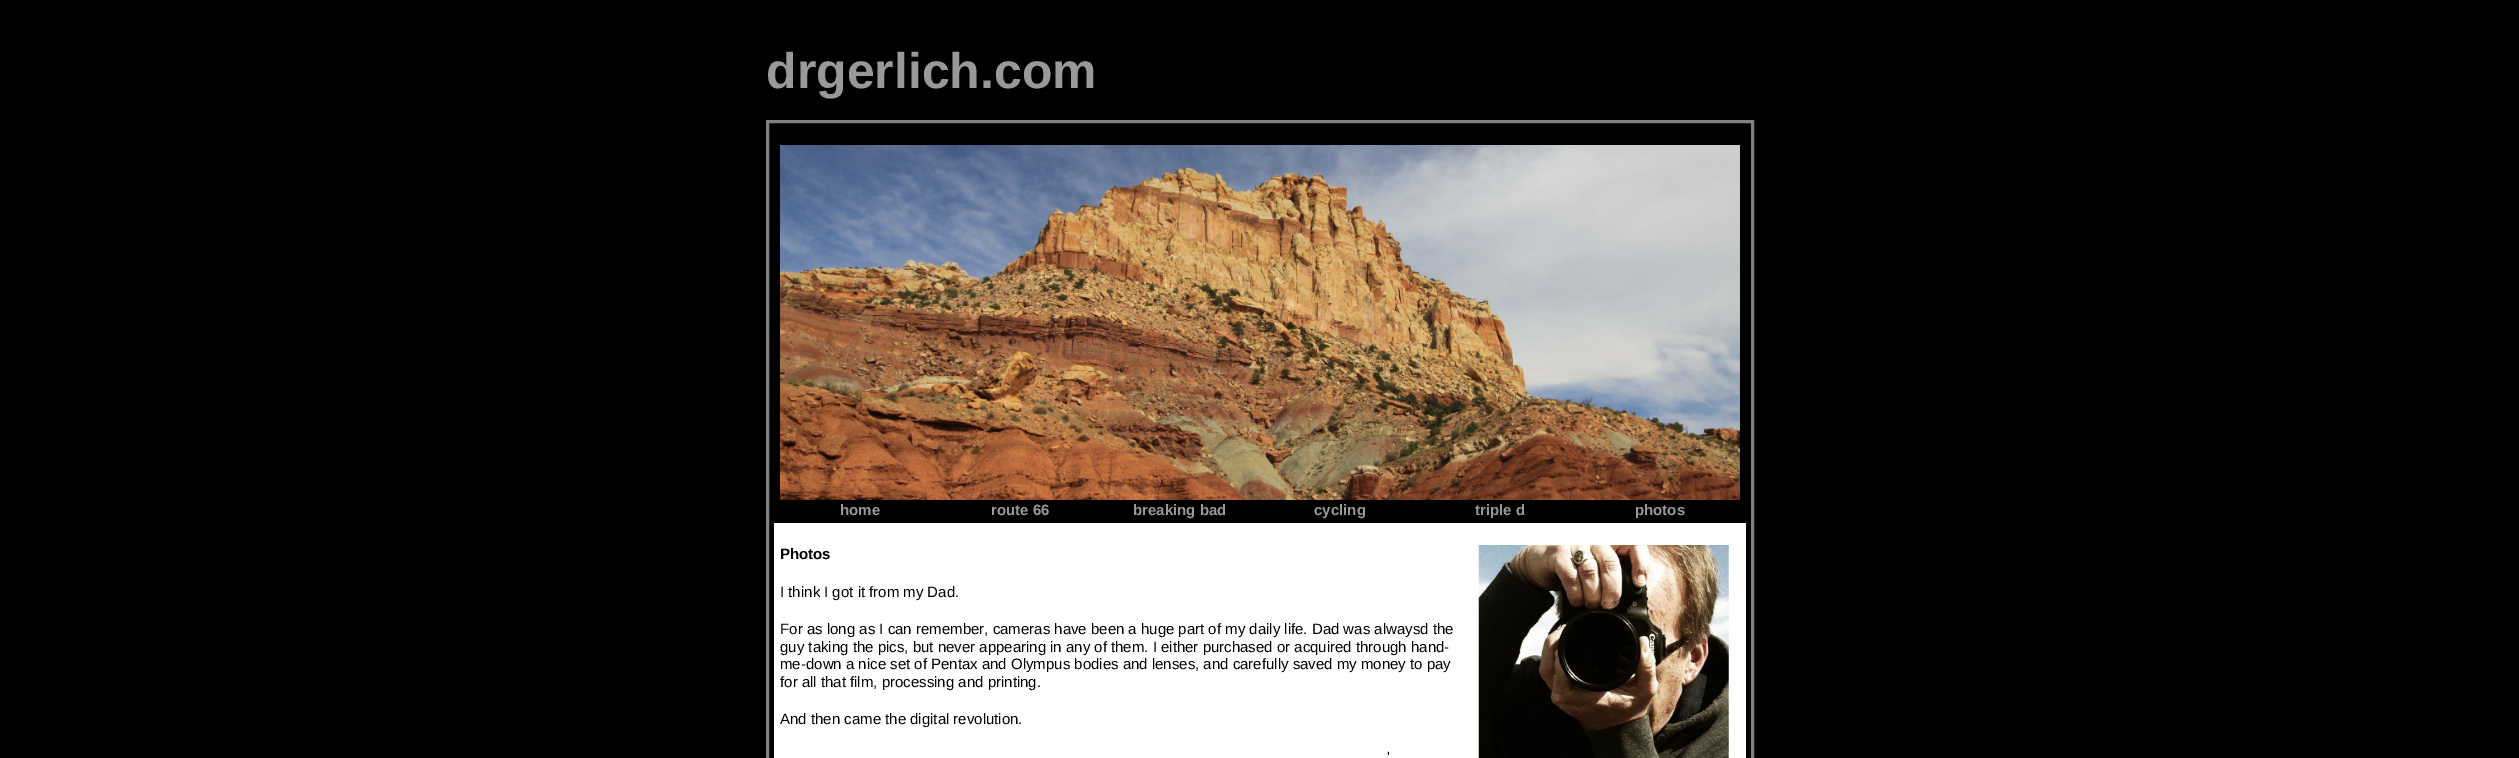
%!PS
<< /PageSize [2519 758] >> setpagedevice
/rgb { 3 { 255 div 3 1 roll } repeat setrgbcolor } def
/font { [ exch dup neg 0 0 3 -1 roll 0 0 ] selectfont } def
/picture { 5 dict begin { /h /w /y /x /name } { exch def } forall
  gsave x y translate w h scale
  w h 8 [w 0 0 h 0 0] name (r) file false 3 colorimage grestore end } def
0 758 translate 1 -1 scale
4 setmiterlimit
0 0 0 rgb
0 0 2519 758 rectfill
128 128 128 rgb
3 setlinewidth
767.5 121.5 985 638 rectstroke
(img/1.rgb) 780 145 960 355 picture
255 255 255 rgb
774 523 972 22 rectfill
774 545 972 213 rectfill
(img/2.rgb) 1478 545 251 213 picture
/LiberationSans-Bold 50 font
153 153 153 rgb
766 88 moveto (drgerlich.com) show
/LiberationSans-Bold 15 font
[
  [(home) 840 515]
  [(route 66) 991 515]
  [(breaking bad) 1133 515]
  [(cycling) 1314 515]
  [(triple d) 1475 515]
  [(photos) 1635 515]
] { aload pop moveto show } forall
0 0 0 rgb
780 559 moveto (Photos) show
/LiberationSans-Regular 15 font
[
  [(I think I got it from my Dad.) 780 597]
  [(For as long as I can remember, cameras have been a huge part of my daily life. Dad was alwaysd the) 780 634]
  [(guy taking the pics, but never appearing in any of them. I either purchased or acquired through hand-) 780 652]
  [(me-down a nice set of Pentax and Olympus bodies and lenses, and carefully saved my money to pay) 780 669]
  [(for all that film, processing and printing.) 780 687]
  [(And then came the digital revolution.) 780 724]
  [(') 1387 762]
] { aload pop moveto show } forall
showpage
